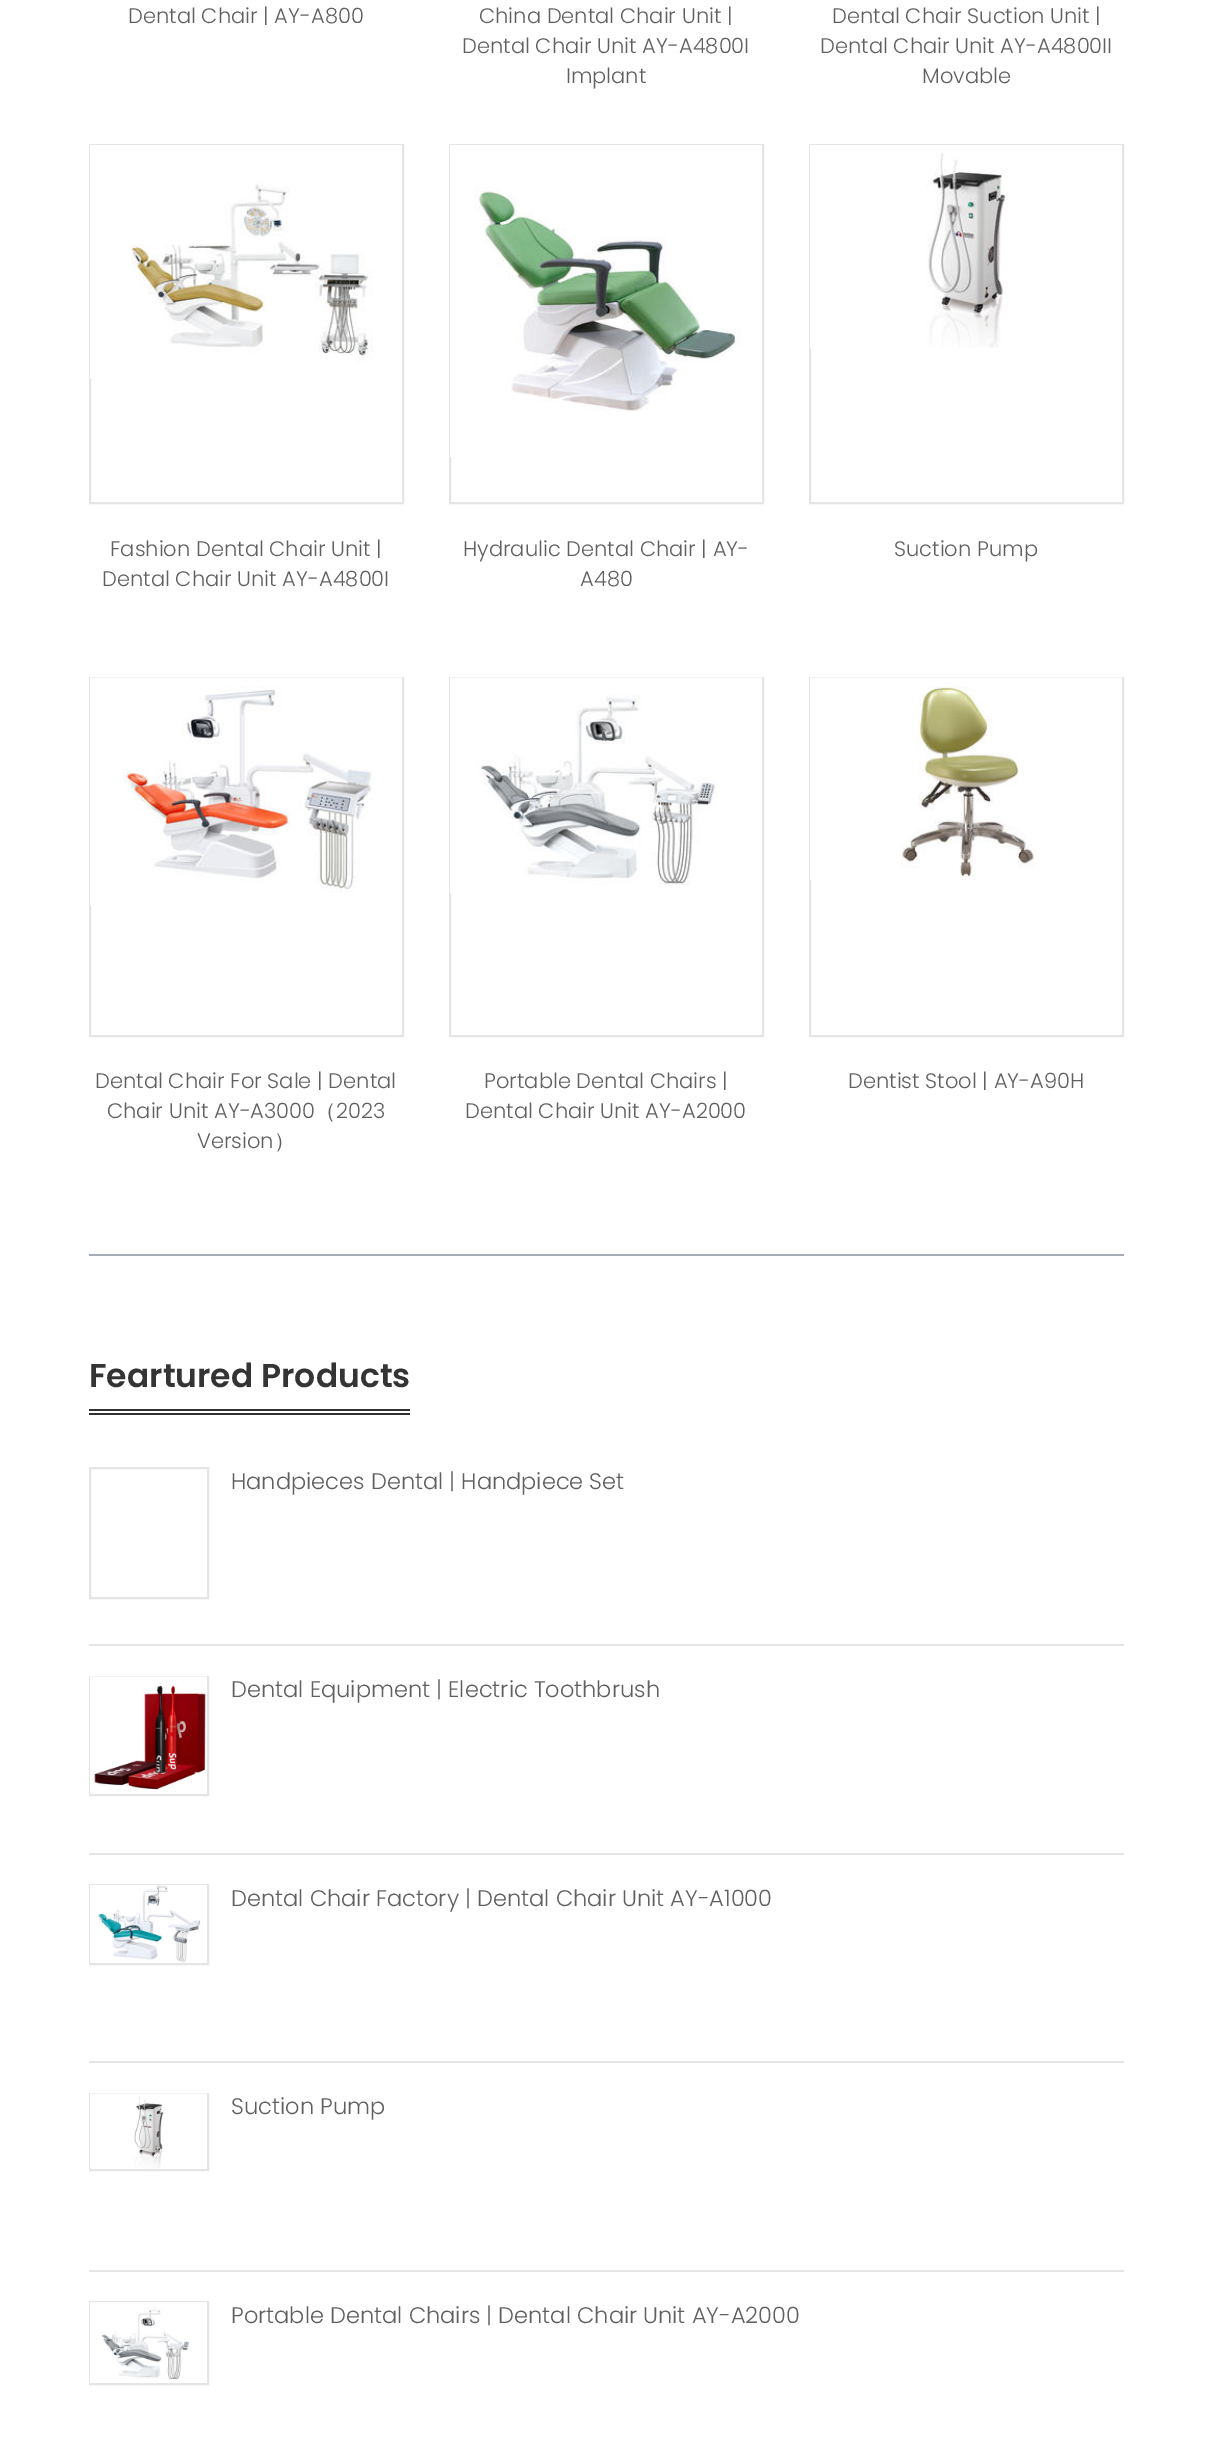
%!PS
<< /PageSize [1212 2454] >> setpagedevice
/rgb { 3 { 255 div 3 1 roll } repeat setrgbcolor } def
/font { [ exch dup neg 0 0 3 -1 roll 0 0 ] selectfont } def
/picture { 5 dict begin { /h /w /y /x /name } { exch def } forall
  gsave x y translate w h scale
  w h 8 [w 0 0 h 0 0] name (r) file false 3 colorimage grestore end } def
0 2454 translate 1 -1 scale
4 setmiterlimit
255 255 255 rgb
0 0 1212 2454 rectfill
165 171 183 rgb
89 1254 1035 2 rectfill
229 229 229 rgb
2 setlinewidth
90 145 313 358 rectstroke
(img/1.rgb) 90 145 312 234 picture
450 145 313 358 rectstroke
(img/2.rgb) 450 145 312 312 picture
810 145 313 358 rectstroke
(img/3.rgb) 810 145 312 203 picture
90 678 313 358 rectstroke
(img/4.rgb) 90 677 312 229 picture
450 678 313 358 rectstroke
(img/5.rgb) 450 677 312 217 picture
810 678 313 358 rectstroke
(img/6.rgb) 810 677 312 203 picture
[
  [89 1409 321 2 48 48 48]
  [89 1413 321 2 48 48 48]
  [89 1644 1035 2 229 229 229]
] { aload pop rgb rectfill } forall
90 1468 118 130 rectstroke
89 1853 1035 2 rectfill
90 1677 118 118 rectstroke
(img/7.rgb) 90 1676 117 118 picture
89 2061 1035 2 rectfill
90 1885 118 79 rectstroke
(img/8.rgb) 90 1885 117 78 picture
89 2270 1035 2 rectfill
90 2094 118 76 rectstroke
(img/9.rgb) 90 2093 117 76 picture
90 2302 118 82 rectstroke
(img/10.rgb) 90 2302 117 81 picture
/Poppins-Light 21 font
96 96 96 rgb
[
  [(Dental Chair | AY-A800) 128 23]
  [(China Dental Chair Unit |) 479 23]
  [(Dental Chair Unit AY-A4800I) 462 53]
  [(Implant) 566 83]
  [(Dental Chair Suction Unit |) 832 23]
  [(Dental Chair Unit AY-A4800II) 820 53]
  [(Movable) 922 83]
  [(Fashion Dental Chair Unit |) 110 556]
  [(Dental Chair Unit AY-A4800I) 102 586]
  [(Hydraulic Dental Chair | AY-) 463 556]
  [(A480) 580 586]
  [(Suction Pump) 894 556]
  [(Dental Chair For Sale | Dental) 95 1088]
  [(Chair Unit AY-A3000) 107 1118]
] { aload pop moveto show } forall
/WenQuanYiZenHei-Medium 21 font
315 1118 moveto (（) show
/Poppins-Light 21 font
336 1118 moveto (2023) show
197 1148 moveto (Version) show
/WenQuanYiZenHei-Medium 21 font
274 1148 moveto (）) show
/Poppins-Light 21 font
[
  [(Portable Dental Chairs |) 484 1088]
  [(Dental Chair Unit AY-A2000) 465 1118]
  [(Dentist Stool | AY-A90H) 848 1088]
] { aload pop moveto show } forall
/Poppins-SemiBold 33 font
52 52 52 rgb
89 1387 moveto (Feartured Products) show
/Poppins-Light 22.5 font
96 96 96 rgb
[
  [(Handpieces Dental | Handpiece Set) 231 1489]
  [(Dental Equipment | Electric Toothbrush) 231 1697]
  [(Dental Chair Factory | Dental Chair Unit AY-A1000) 231 1906]
  [(Suction Pump) 231 2114]
  [(Portable Dental Chairs | Dental Chair Unit AY-A2000) 231 2323]
] { aload pop moveto show } forall
showpage
